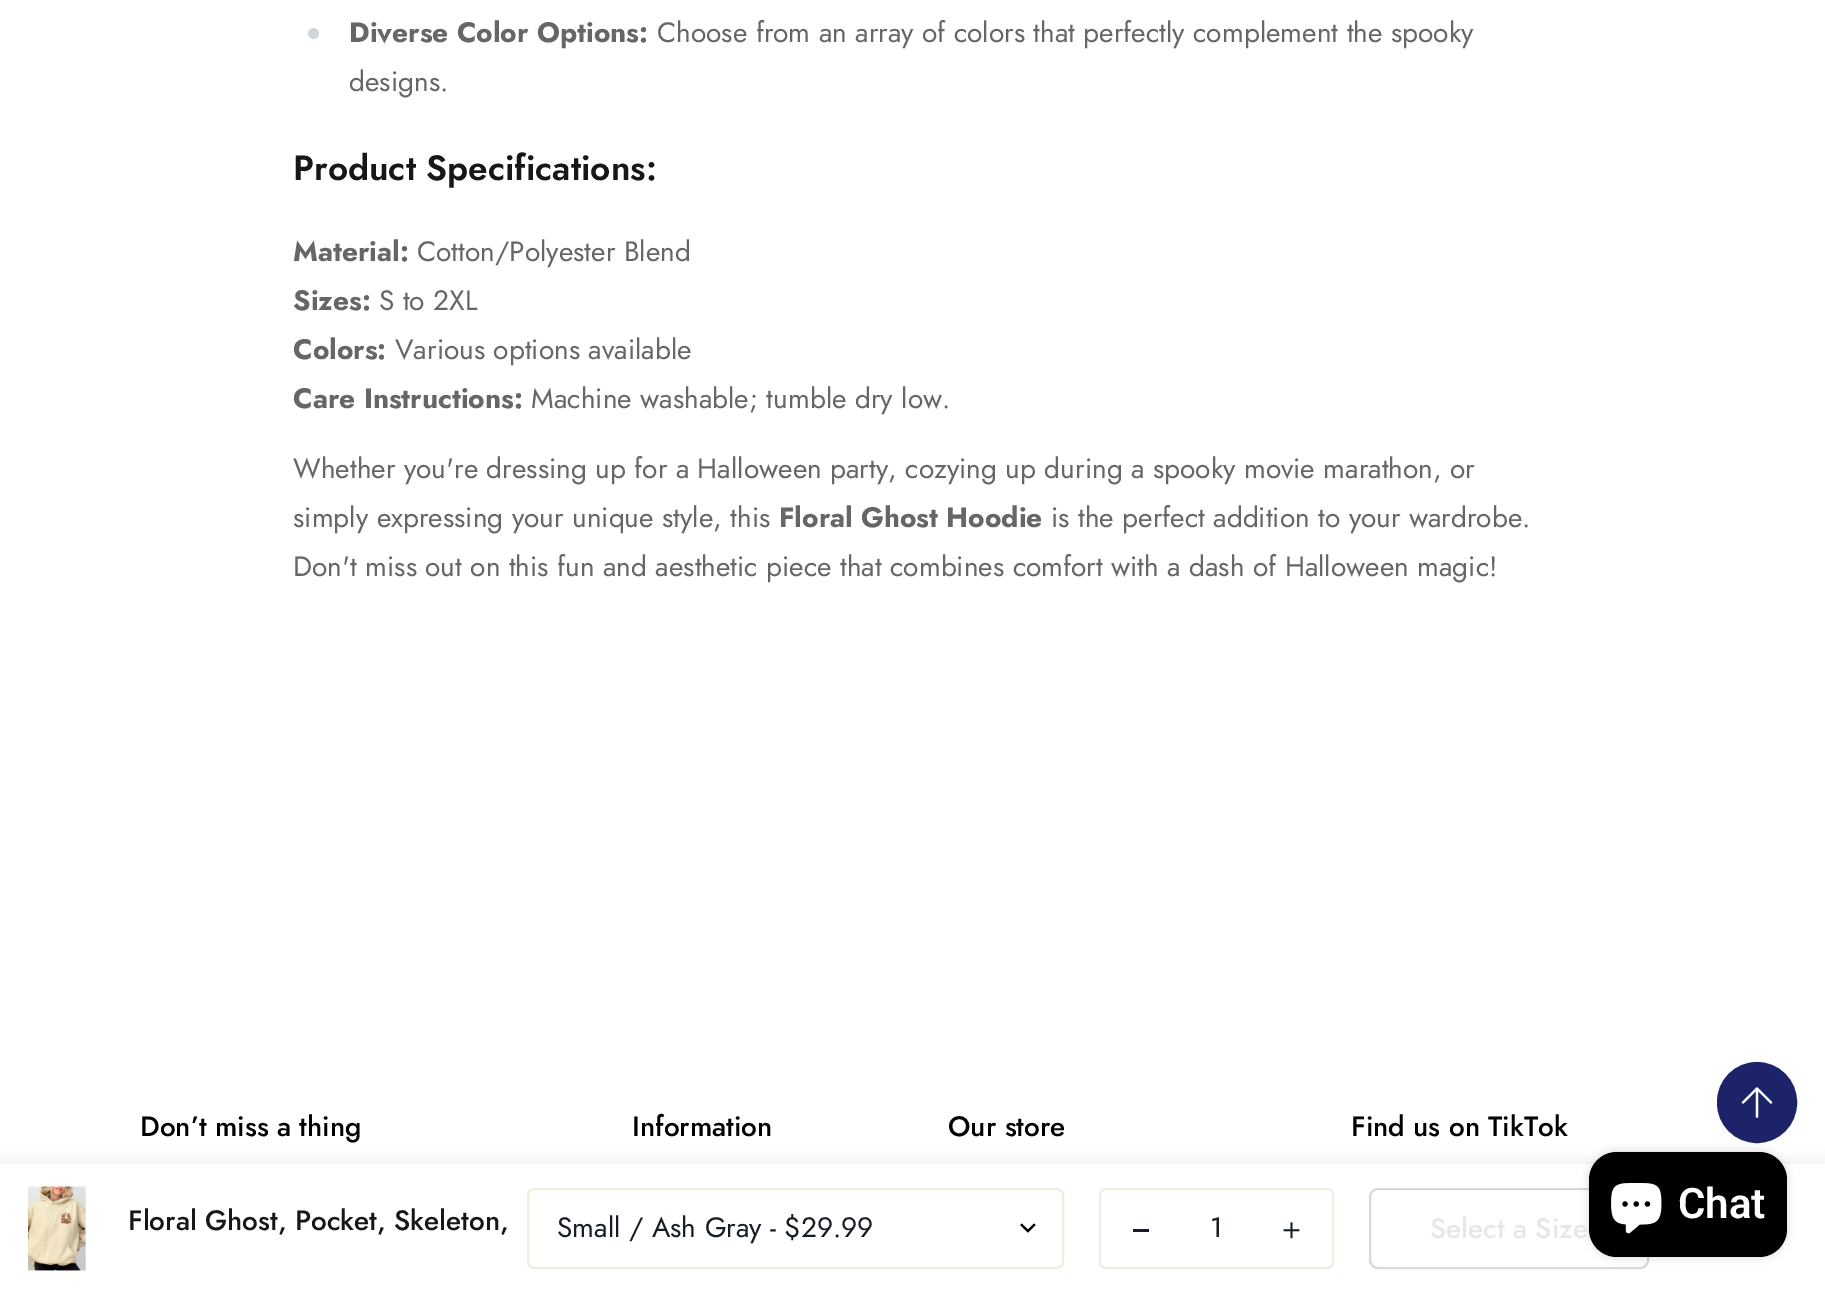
%!PS
<< /PageSize [1825 1293] /PageUsesTransparency true >> setpagedevice
/rgb { 3 { 255 div 3 1 roll } repeat setrgbcolor } def
/font { [ exch dup neg 0 0 3 -1 roll 0 0 ] selectfont } def
/alpha { dup .setfillconstantalpha .setstrokeconstantalpha } def
/circle { newpath 0 360 arc closepath } def
/roundrect { 5 dict begin { /r /h /w /y /x } { exch def } forall
  x r add y moveto x w add y 2 copy h add r arct x w add y h add x 1 index r arct
  x y h add x y r arct x y 2 copy exch w add exch r arct closepath end } def
/shadow { 12 dict begin { /a /b /q /h /w /y /x } { exch def } forall gsave /was 0 def
  9 -2 -9 { dup b mul 4 div /e exch def 1 sub .425 mul 2.718 exch exp 1 add a .99 .min exch div /now exch def
    1 1 now sub 1 was sub div sub alpha /was now def
    w h .min e 2 mul add 0 gt { x e sub y e sub w e 2 mul add h e 2 mul add
      q e add b .6 mul add w h .min 2 div e add .min 0 .max roundrect fill } if } for grestore end } def
/picture { 5 dict begin { /h /w /y /x /name } { exch def } forall
  gsave x y translate w h scale
  w h 8 [w 0 0 h 0 0] name (r) file false 3 colorimage grestore end } def
0 .pushpdf14devicefilter
0 1293 translate 1 -1 scale
4 setmiterlimit
255 255 255 rgb
0 0 1825 1293 rectfill
209 213 219 rgb
313.5 33.5 5.5 circle fill
0 0 0 rgb
0 1164 1825 129 0 9 0.09 shadow
255 255 255 rgb
0 1164 1825 129 rectfill
(img/1.rgb) 28 1186 58 85 picture
(img/2.rgb) 1020 1223 16 10 picture
238 238 224 rgb
2 setlinewidth
528 1189 535 79 6 roundrect stroke
1100 1189 233 79 6 roundrect stroke
22 29 37 rgb
1133 1229 16 3 rectfill
(img/3.rgb) 1283 1222 17 17 picture
217 217 217 rgb
1370 1189 278 79 8 roundrect stroke
29 35 105 rgb
1718 1063 78 79 39 roundrect gsave fill grestore
stroke
(img/4.rgb) 1741 1087 32 31 picture
0 0 0 rgb
1589 1152 198 105 28 4.5 0.15 shadow
1589 1152 198 105 28 roundrect fill
(img/5.rgb) 1611 1183 51 51 picture
/Jost-Bold 28 font
102 102 102 rgb
349 42 moveto (Diverse Color Options:) show
/Jost-Regular 28 font
657 42 moveto (Choose from an array of colors that perfectly complement the spooky) show
349 91 moveto (designs.) show
/Jost-SemiBold 35 font
23 23 23 rgb
293 180 moveto (Product Specifications:) show
/Jost-Bold 28 font
102 102 102 rgb
293 261 moveto (Material:) show
/Jost-Regular 28 font
417 261 moveto (Cotton/Polyester Blend) show
/Jost-Bold 28 font
293 310 moveto (Sizes:) show
/Jost-Regular 28 font
379 310 moveto (S to 2XL) show
/Jost-Bold 28 font
293 359 moveto (Colors:) show
/Jost-Regular 28 font
395 359 moveto (Various options available) show
/Jost-Bold 28 font
293 408 moveto (Care Instructions:) show
/Jost-Regular 28 font
[
  [(Machine washable; tumble dry low.) 531 408]
  [(Whether you're dressing up for a Halloween party, cozying up during a spooky movie marathon, or) 293 478]
  [(simply expressing your unique style, this) 293 527]
] { aload pop moveto show } forall
/Jost-Bold 28 font
779 527 moveto (Floral Ghost Hoodie) show
/Jost-Regular 28 font
1051 527 moveto (is the perfect addition to your wardrobe.) show
293 576 moveto (Don't miss out on this fun and aesthetic piece that combines comfort with a dash of Halloween magic!) show
/Jost-Medium 28 font
23 23 23 rgb
128 1230 moveto (Floral Ghost, Pocket, Skeleton,) show
/Jost-Regular 28 font
22 29 37 rgb
557 1237 moveto (Small / Ash Gray - $29.99) show
1210 1237 moveto (1) show
/Jost-Medium 28 font
231 231 231 rgb
1430 1238 moveto (Select a Size) show
0 0 0 rgb
[
  [(Don’t miss a thing) 140 1136]
  [(Information) 632 1136]
  [(Our store) 948 1136]
  [(Find us on TikTok) 1351 1136]
] { aload pop moveto show } forall
/Roboto-SemiBold 42 font
255 255 255 rgb
1678 1218 moveto (Chat) show
.poppdf14devicefilter showpage
